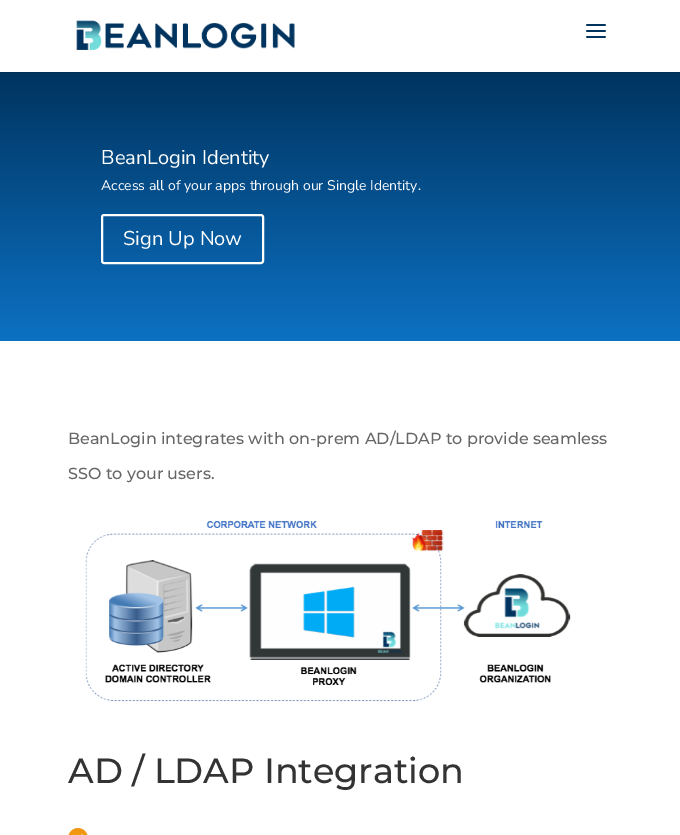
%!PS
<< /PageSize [680 835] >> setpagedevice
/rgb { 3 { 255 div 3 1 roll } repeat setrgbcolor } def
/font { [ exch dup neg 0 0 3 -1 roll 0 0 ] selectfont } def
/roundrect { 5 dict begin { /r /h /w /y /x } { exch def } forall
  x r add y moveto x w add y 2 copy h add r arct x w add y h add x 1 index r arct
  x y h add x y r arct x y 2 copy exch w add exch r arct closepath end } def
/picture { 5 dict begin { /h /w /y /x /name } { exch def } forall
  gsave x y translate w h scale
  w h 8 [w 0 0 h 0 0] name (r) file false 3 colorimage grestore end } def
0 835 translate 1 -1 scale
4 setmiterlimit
255 255 255 rgb
0 0 680 835 rectfill
0 47 86 rgb
0 72 680 1 rectfill
(img/1.rgb) 76 20 219 30 picture
(img/2.rgb) 586 24 20 14 picture
gsave 0 73 moveto 680 73 lineto 680 341 lineto 0 341 lineto closepath clip newpath
<< /ShadingType 2 /ColorSpace /DeviceRGB /Coords [340 71 340 341] /Extend [true true] /Function << /FunctionType 2 /Domain [0 1] /C0 [0 0.204 0.373] /C1 [0.047 0.443 0.765] /N 1 >> >> shfill grestore
255 255 255 rgb
2 setlinewidth
102 215 161 48 2 roundrect stroke
(img/3.rgb) 85 520 486 182 picture
(img/4.rgb) 68 828 20 7 picture
/NunitoSans-Regular 20 font
101 164 moveto (BeanLogin Identity) show
/NunitoSans-Regular 14 font
101 190 moveto (Access all of your apps through our Single Identity.) show
/NunitoSans-Regular 20 font
123 245 moveto (Sign Up Now) show
/Montserrat-Medium 16 font
102 102 102 rgb
68 444 moveto (BeanLogin integrates with on-prem AD/LDAP to provide seamless) show
68 479 moveto (SSO to your users.) show
/Montserrat-Medium 35 font
51 51 51 rgb
68 783 moveto (AD / LDAP Integration) show
showpage
